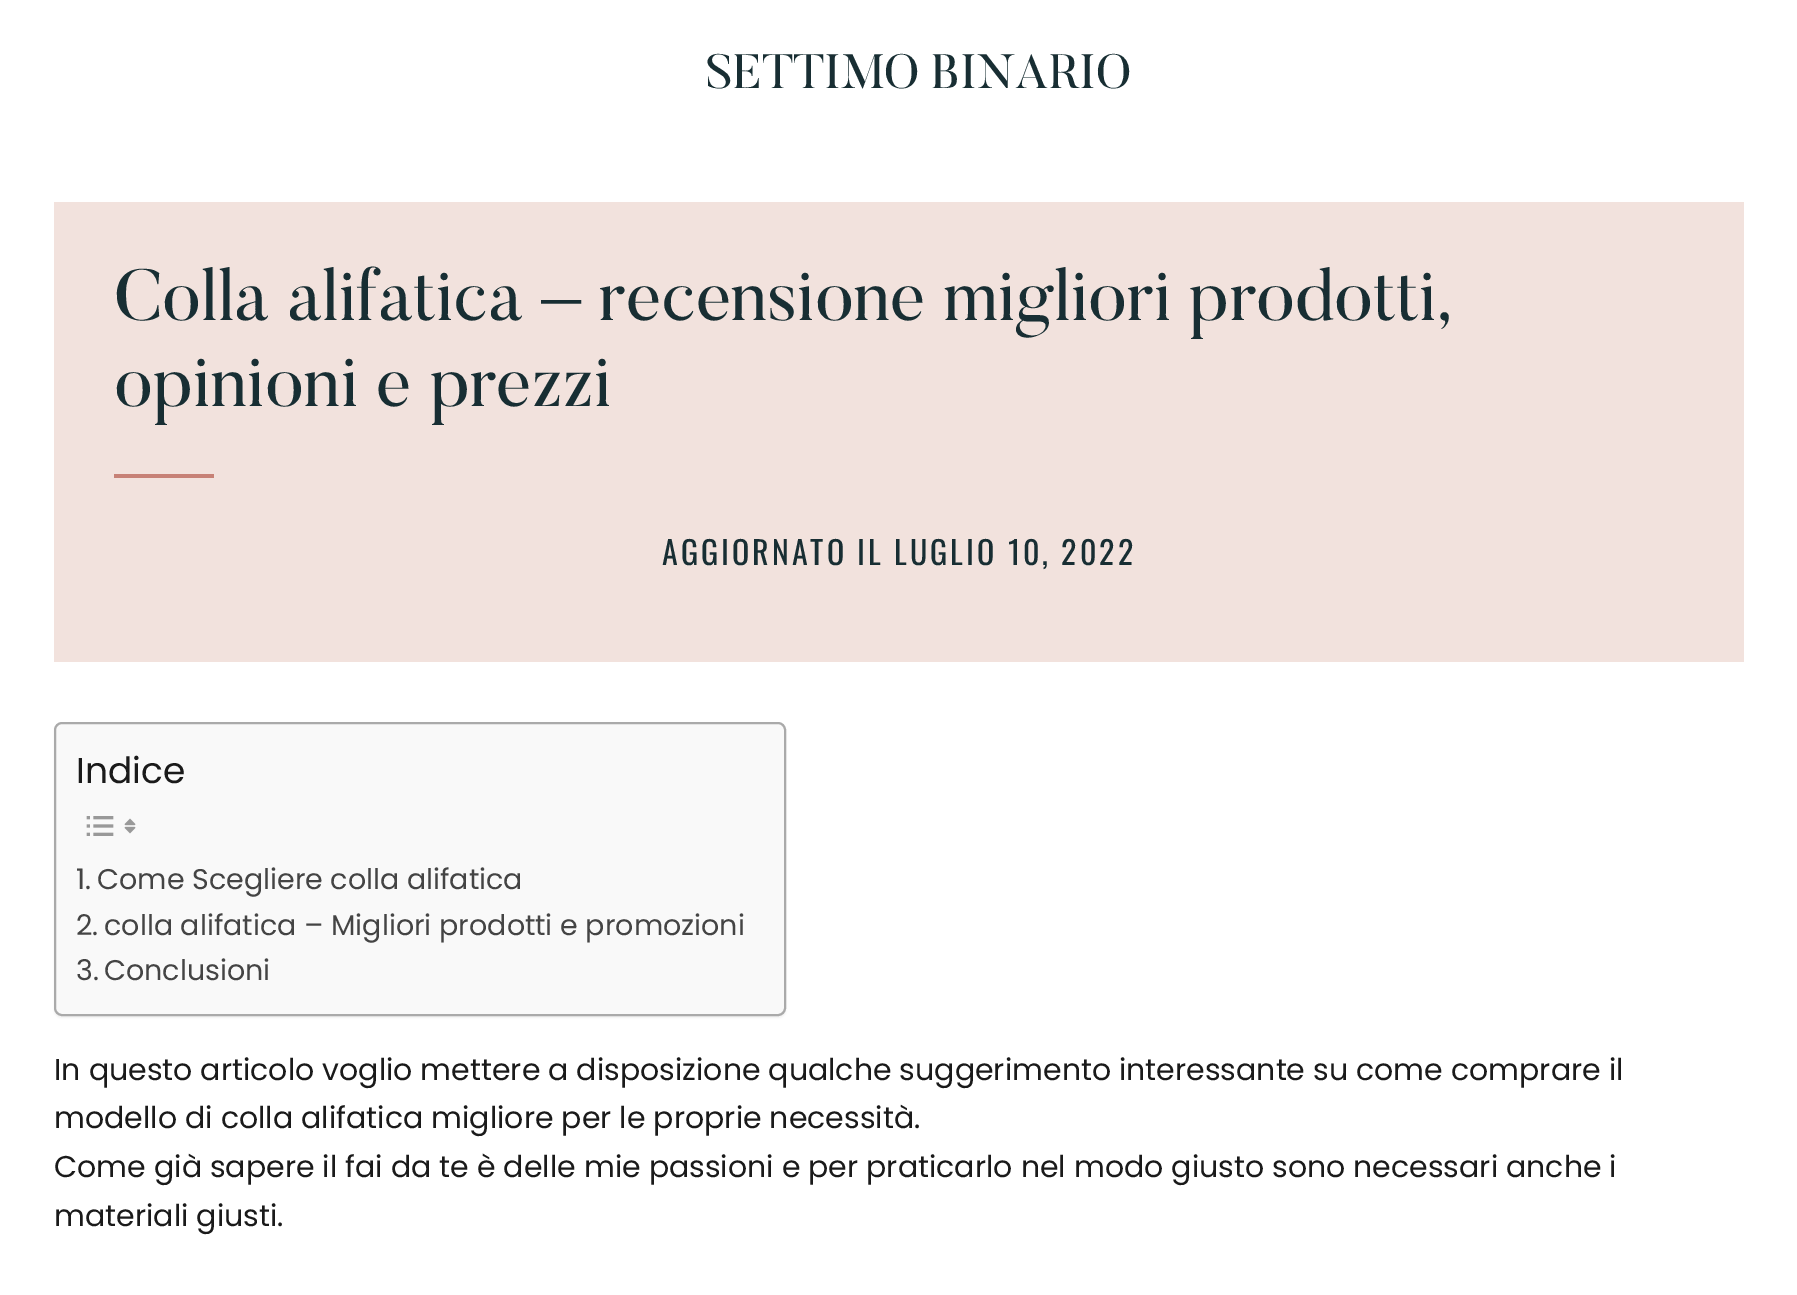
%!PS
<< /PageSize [1797 1295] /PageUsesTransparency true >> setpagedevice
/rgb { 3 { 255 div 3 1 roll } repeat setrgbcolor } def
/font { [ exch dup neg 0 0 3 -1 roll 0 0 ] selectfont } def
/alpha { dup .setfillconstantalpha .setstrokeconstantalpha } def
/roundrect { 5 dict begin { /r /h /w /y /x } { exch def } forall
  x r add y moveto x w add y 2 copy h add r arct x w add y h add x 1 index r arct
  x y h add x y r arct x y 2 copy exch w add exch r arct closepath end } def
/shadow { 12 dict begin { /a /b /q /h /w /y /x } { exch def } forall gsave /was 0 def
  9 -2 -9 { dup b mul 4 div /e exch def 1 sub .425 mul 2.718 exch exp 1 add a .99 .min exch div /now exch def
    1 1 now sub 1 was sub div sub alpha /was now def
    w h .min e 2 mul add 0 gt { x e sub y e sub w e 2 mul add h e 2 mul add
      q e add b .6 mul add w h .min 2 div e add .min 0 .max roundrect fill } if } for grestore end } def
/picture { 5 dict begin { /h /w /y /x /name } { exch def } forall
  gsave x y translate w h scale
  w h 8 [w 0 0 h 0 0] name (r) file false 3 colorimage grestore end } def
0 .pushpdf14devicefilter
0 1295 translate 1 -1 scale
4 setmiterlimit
255 255 255 rgb
0 0 1797 1295 rectfill
242 226 221 rgb
54 202 1690 460 rectfill
199 129 118 rgb
114 474 100 4 rectfill
0 0 0 rgb
54 724 732 294 8 1 0.05 shadow
249 249 249 rgb
55 723 730 292 7 roundrect gsave fill grestore
170 170 170 rgb
2 setlinewidth
stroke
(img/1.rgb) 86 816 28 20 picture
(img/2.rgb) 124 818 12 16 picture
/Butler-Regular 48 font
24 46 51 rgb
706 88 moveto (SETTIMO BINARIO) show
/Butler-Regular 72 font
114 320 moveto (Colla alifatica – recensione migliori prodotti,) show
114 406 moveto (opinioni e prezzi) show
/Oswald-Regular 32 font
662 565 moveto 3 0 (AGGIORNATO IL LUGLIO 10, 2022) ashow
/Poppins-Regular 36 font
26 26 26 rgb
76 783 moveto (Indice) show
/Poppins-Regular 28.5 font
68 68 68 rgb
[
  [(1.) 76 889]
  [(Come Scegliere colla alifatica) 97 889]
  [(2.) 76 935]
  [(colla alifatica – Migliori prodotti e promozioni) 104 935]
  [(3.) 76 980]
  [(Conclusioni) 104 980]
] { aload pop moveto show } forall
/Poppins-Regular 30 font
26 26 26 rgb
[
  [(In questo articolo voglio mettere a disposizione qualche suggerimento interessante su come comprare il) 54 1080]
  [(modello di colla alifatica migliore per le proprie necessità.) 54 1128]
  [(Come già sapere il fai da te è delle mie passioni e per praticarlo nel modo giusto sono necessari anche i) 54 1177]
  [(materiali giusti.) 54 1226]
] { aload pop moveto show } forall
.poppdf14devicefilter showpage
